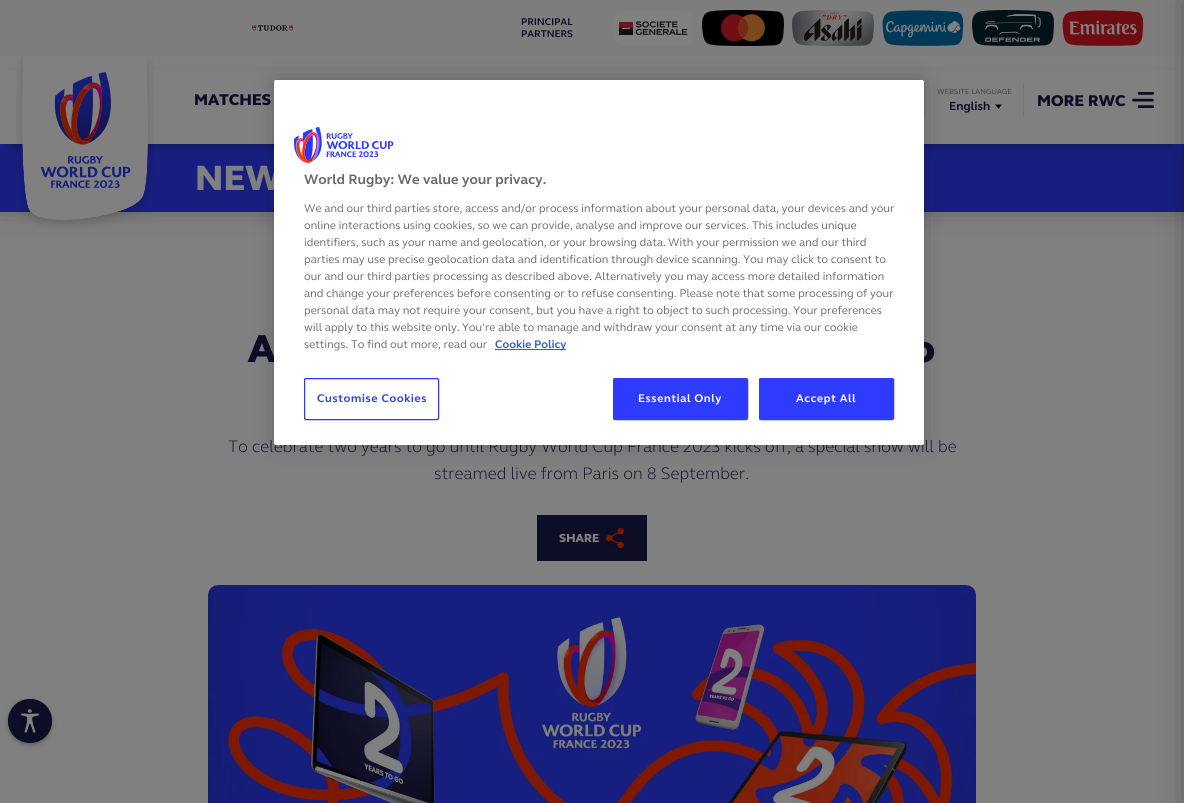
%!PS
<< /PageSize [1184 803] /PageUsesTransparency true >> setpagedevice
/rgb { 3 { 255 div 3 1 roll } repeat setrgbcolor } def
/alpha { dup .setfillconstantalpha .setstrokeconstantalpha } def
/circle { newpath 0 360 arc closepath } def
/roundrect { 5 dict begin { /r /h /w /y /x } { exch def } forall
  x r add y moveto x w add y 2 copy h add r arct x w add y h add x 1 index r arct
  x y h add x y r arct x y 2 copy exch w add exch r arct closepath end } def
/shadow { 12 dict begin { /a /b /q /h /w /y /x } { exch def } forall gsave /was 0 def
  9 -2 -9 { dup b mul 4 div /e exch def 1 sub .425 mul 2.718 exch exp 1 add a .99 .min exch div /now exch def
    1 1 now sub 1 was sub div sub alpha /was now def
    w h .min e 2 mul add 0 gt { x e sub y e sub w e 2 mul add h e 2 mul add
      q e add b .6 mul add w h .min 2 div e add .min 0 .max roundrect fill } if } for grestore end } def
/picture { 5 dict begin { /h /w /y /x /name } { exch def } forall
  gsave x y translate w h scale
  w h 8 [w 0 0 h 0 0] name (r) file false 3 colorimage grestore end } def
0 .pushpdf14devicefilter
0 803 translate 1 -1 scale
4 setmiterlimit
128 128 128 rgb
0 0 1184 803 rectfill
125 125 125 rgb
0 0 1184 56 rectfill
(img/1.rgb) 252 25 41 6 picture
(img/2.rgb) 521 18 52 8 picture
(img/3.rgb) 521 30 52 8 picture
(img/4.rgb) 612 10 82 36 picture
(img/5.rgb) 702 10 82 36 picture
(img/6.rgb) 792 10 82 36 picture
(img/7.rgb) 882 10 82 36 picture
(img/8.rgb) 972 10 82 36 picture
(img/9.rgb) 1062 10 82 36 picture
0 0 0 rgb
0 146 1184 68 0 10 0.2 shadow
23 30 128 rgb
0 144 1184 68 rectfill
0 0 0 rgb
12 80 1160 64 0 6 0.4 shadow
128 128 128 rgb
0 70 1184 74 rectfill
(img/18.rgb) 1132 92 22 16 picture
0 0 0 rgb
1184 0 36 803 0 12 0.25 shadow
(img/10.rgb) 16 56 138 173 picture
(img/11.rgb) 54 72 57 73 picture
(img/12.rgb) 40 156 91 32 picture
(img/13.rgb) 195 94 76 12 picture
120 120 120 rgb
924 83 1 34 rectfill
(img/14.rgb) 937 88 75 7 picture
(img/15.rgb) 950 101 40 12 picture
(img/16.rgb) 995 104 7 5 picture
1023 83 1 34 rectfill
(img/17.rgb) 1038 95 88 12 picture
(img/19.rgb) 197 165 77 25 picture
(img/20.rgb) 247 335 688 28 picture
(img/21.rgb) 228 440 728 16 picture
(img/22.rgb) 434 466 314 17 picture
13 13 38 rgb
537 515 110 46 rectfill
(img/23.rgb) 559 533 40 10 picture
(img/24.rgb) 606 528 18 20 picture
(img/25.rgb) 208 585 768 218 picture
0 0 0 rgb
274 80 650 365 2.5 9 0.2 shadow
255 255 255 rgb
274 80 650 365 2.5 roundrect fill
(img/26.rgb) 294 127 100 36 picture
(img/27.rgb) 304 174 242 14 picture
(img/28.rgb) 304 203 591 12 picture
(img/29.rgb) 304 221 553 11 picture
(img/30.rgb) 304 237 361 12 picture
(img/31.rgb) 668 238 198 11 picture
(img/32.rgb) 304 254 582 12 picture
(img/33.rgb) 304 271 580 12 picture
(img/34.rgb) 304 288 590 12 picture
(img/35.rgb) 304 305 578 12 picture
(img/36.rgb) 304 323 155 11 picture
(img/37.rgb) 462 323 396 11 picture
(img/38.rgb) 304 339 183 12 picture
56 96 190 rgb
495 349 71 1 rectfill
(img/39.rgb) 495 340 72 11 picture
45 60 255 rgb
304.5 378.5 134 41 1.5 roundrect stroke
(img/40.rgb) 317 394 109 9 picture
613.5 378.5 134 41 1.5 roundrect gsave fill grestore
stroke
(img/41.rgb) 638 394 84 11 picture
759.5 378.5 134 41 1.5 roundrect gsave fill grestore
stroke
(img/42.rgb) 796 394 60 11 picture
0 0 0 rgb
8 701 44 44 22 2.5 0.25 shadow
13 13 38 rgb
30 721 22 circle fill
(img/43.rgb) 21 709 18 24 picture
.poppdf14devicefilter showpage
